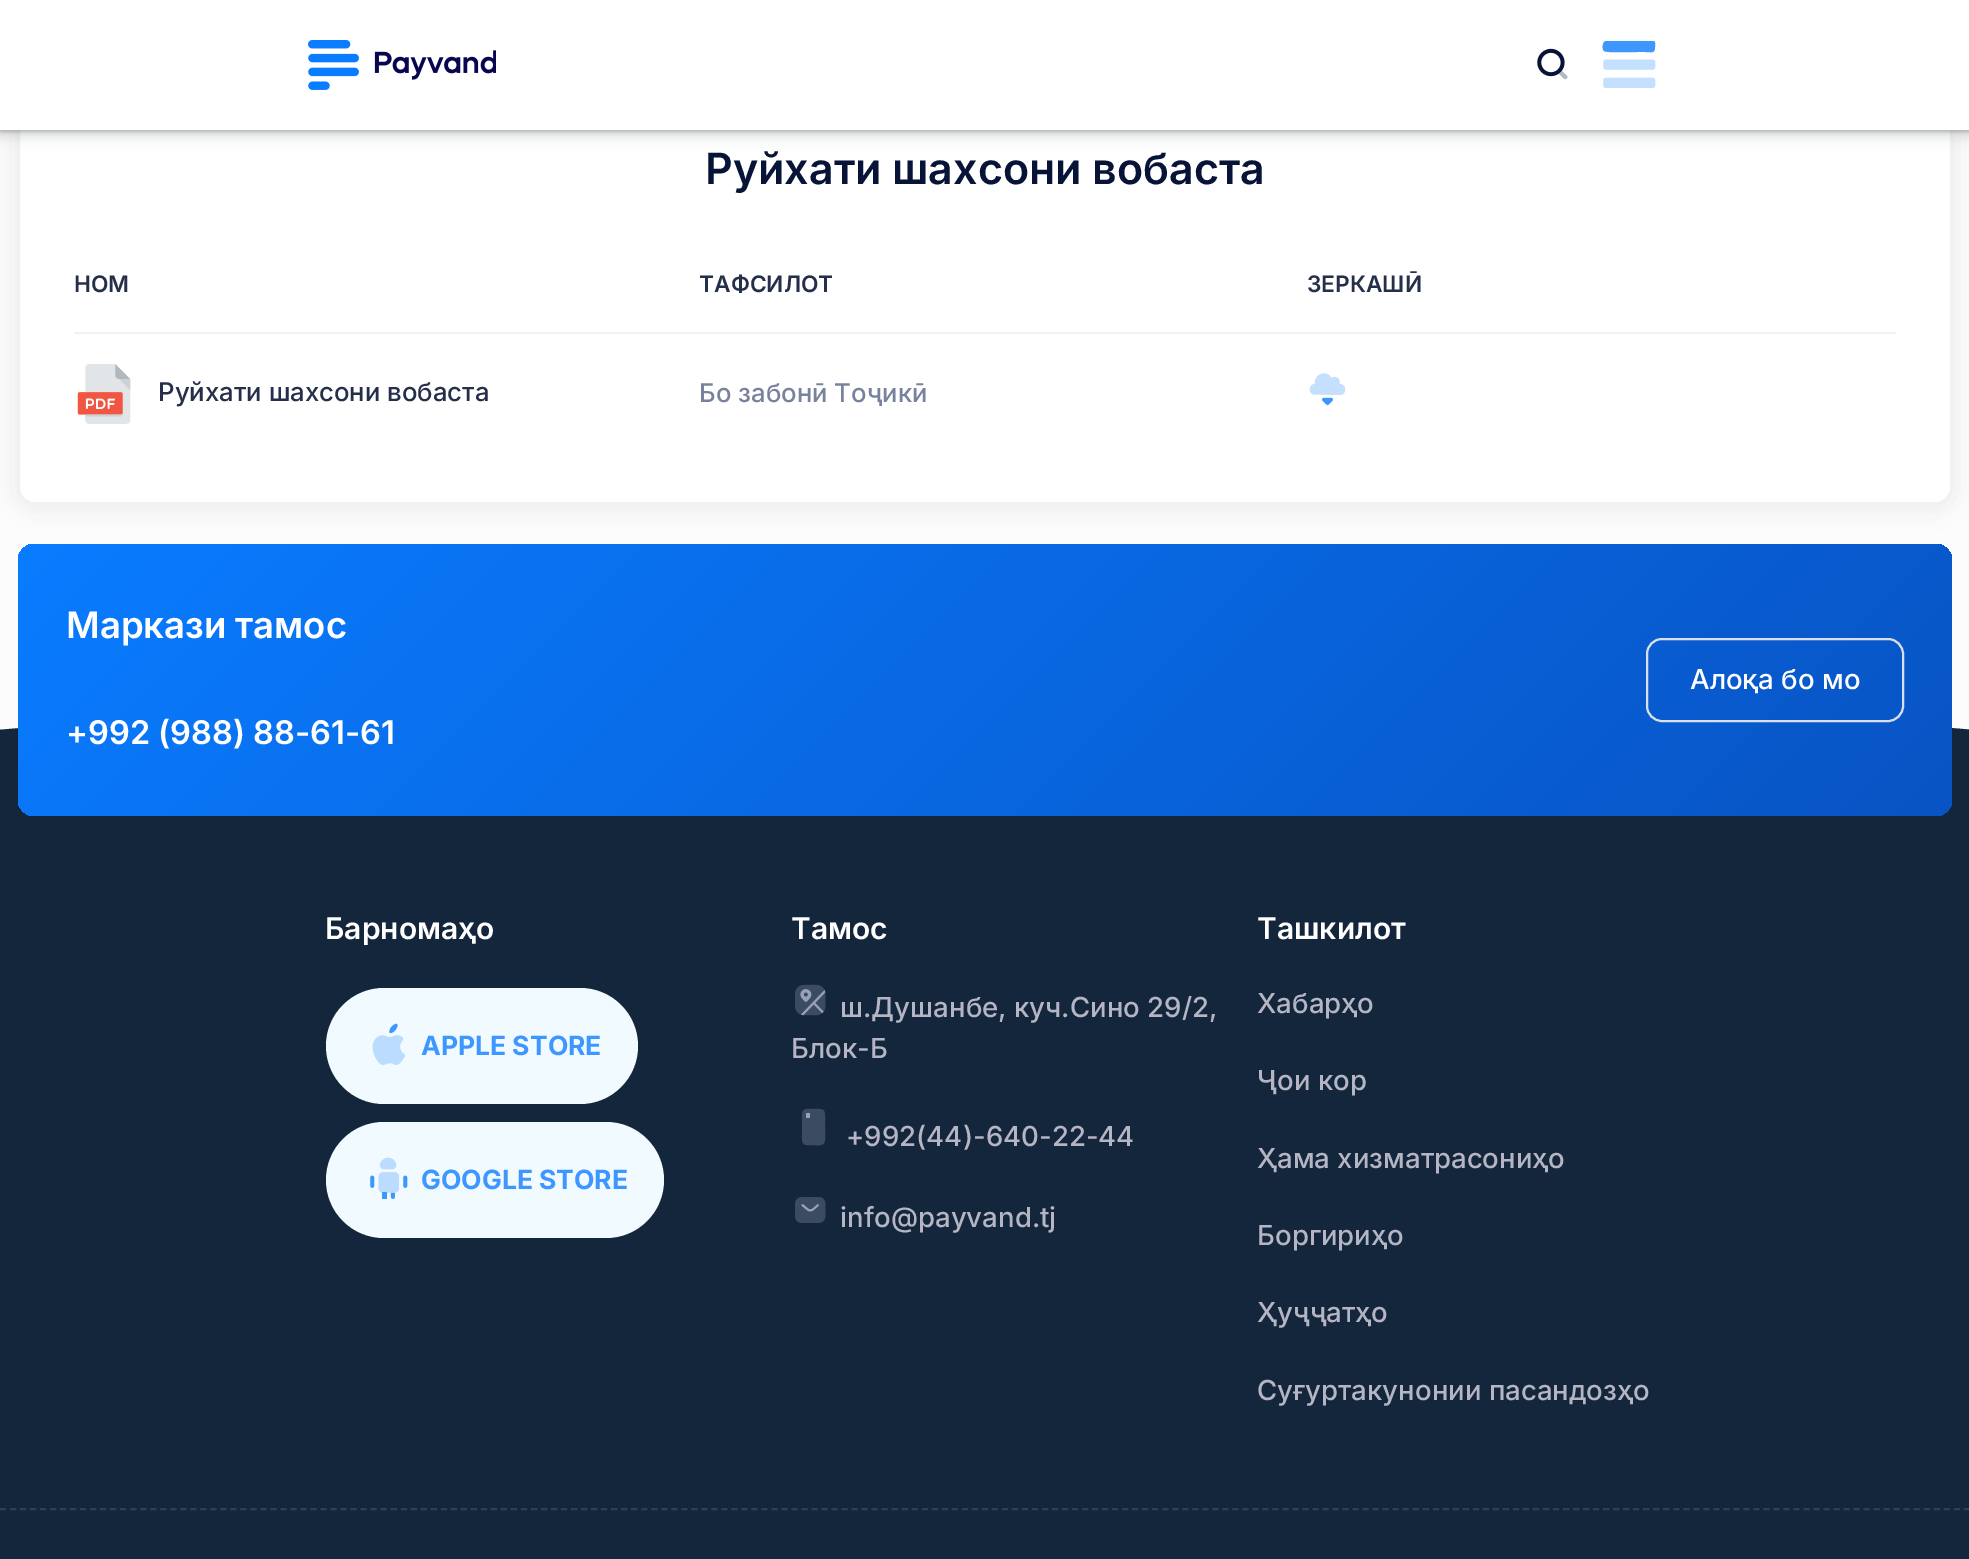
%!PS
<< /PageSize [1969 1559] /PageUsesTransparency true >> setpagedevice
/rgb { 3 { 255 div 3 1 roll } repeat setrgbcolor } def
/font { [ exch dup neg 0 0 3 -1 roll 0 0 ] selectfont } def
/alpha { dup .setfillconstantalpha .setstrokeconstantalpha } def
/roundrect { 5 dict begin { /r /h /w /y /x } { exch def } forall
  x r add y moveto x w add y 2 copy h add r arct x w add y h add x 1 index r arct
  x y h add x y r arct x y 2 copy exch w add exch r arct closepath end } def
/shadow { 12 dict begin { /a /b /q /h /w /y /x } { exch def } forall gsave /was 0 def
  9 -2 -9 { dup b mul 4 div /e exch def 1 sub .425 mul 2.718 exch exp 1 add a .99 .min exch div /now exch def
    1 1 now sub 1 was sub div sub alpha /was now def
    w h .min e 2 mul add 0 gt { x e sub y e sub w e 2 mul add h e 2 mul add
      q e add b .6 mul add w h .min 2 div e add .min 0 .max roundrect fill } if } for grestore end } def
/picture { 5 dict begin { /h /w /y /x /name } { exch def } forall
  gsave x y translate w h scale
  w h 8 [w 0 0 h 0 0] name (r) file false 3 colorimage grestore end } def
0 .pushpdf14devicefilter
0 1559 translate 1 -1 scale
4 setmiterlimit
252 252 252 rgb
0 0 1969 1559 rectfill
0 0 0 rgb
12 90 1946 422 22 12 0.05 shadow
255 255 255 rgb
19 95 1932 408 15 roundrect gsave fill grestore
241 241 242 rgb
2 setlinewidth
stroke
60 64 67 rgb
-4 0 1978 138 0 6 0.15 shadow
0 2 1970 130 0 2 0.3 shadow
255 255 255 rgb
0 0 1969 130 rectfill
(img/1.rgb) 308 40 188 50 picture
(img/2.rgb) 1537 48 28 29 picture
(img/3.rgb) 1559 71 9 9 picture
62 151 255 rgb
1606 41 moveto 1653 41 lineto 1656 41 1655 45 1655 47 curveto 1655 54 1651 52 1645 52 curveto 1637 52 lineto 1633 52 1606 53 1604 51 curveto 1602 50 1602 41 1606 41 curveto closepath fill
(img/4.rgb) 1603 59 53 29 picture
241 241 242 rgb
74 332 1822 2 rectfill
(img/5.rgb) 77 364 54 60 picture
197 224 255 rgb
1340 395 moveto 1347 395 1347 384 1339.5 384 curveto 1341 379 1336 375 1331.5 378 curveto 1326.5 369 1313.5 374.5 1315 384 curveto 1309 384 1307.5 393 1313.5 394.5 curveto closepath fill
(img/6.rgb) 1322 397 11 9 picture
19 38 60 rgb
-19 732 moveto -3 730 lineto 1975 730 lineto 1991 732 lineto 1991 730 lineto 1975 730 lineto 1205 666 767 665 -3 730 curveto -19 730 lineto closepath fill
0 730 1969 829 rectfill
gsave 18 544 1934 272 16 roundrect clip newpath
<< /ShadingType 2 /ColorSpace /DeviceRGB /Coords [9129 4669 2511 -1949] /Extend [true true] /Function << /FunctionType 3 /Domain [0 1] /Functions [<< /FunctionType 2 /Domain [0 1] /C0 [0.035 0.486 1] /C1 [0.027 0.02 0.31] /N 1 >> << /FunctionType 2 /Domain [0 1] /C0 [0.027 0.02 0.31] /C1 [0.035 0.486 1] /N 1 >>] /Bounds [0.5] /Encode [0 1 0 1] >> >> shfill grestore
219 223 233 rgb
1647 639 256 82 15 roundrect stroke
241 250 255 rgb
326 988 312 116 58 roundrect fill
(img/7.rgb) 389 1023 9 11 picture
(img/8.rgb) 372 1035 33 30 picture
326 1122 338 116 58 roundrect fill
(img/9.rgb) 379 1157 18 13 picture
(img/10.rgb) 370 1175 5 13 picture
62 151 255 rgb
382 1192 5 7 rectfill
(img/13.rgb) 390 1192 5 7 picture
(img/11.rgb) 378 1172 21 21 picture
(img/12.rgb) 403 1175 5 13 picture
(img/16.rgb) 801 990 25 26 picture
(img/15.rgb) 800 989 12 13 picture
(img/14.rgb) 795 984 31 32 picture
153 161 183 rgb
806 1113 4 5 rectfill
0.3 alpha
807 1109 moveto 827 1109 825 1106.5 825 1127 curveto 825 1147.5 827 1145.5 807 1145 curveto 801.5 1145 802 1139.5 802 1136 curveto 802 1118.5 lineto 802 1115 801.5 1109 807 1109 curveto closepath fill
1 alpha
(img/18.rgb) 801 1204 18 8 picture
(img/17.rgb) 795 1197 31 26 picture
44 63 91 rgb
[6 4.02] 0 setdash
0 1509 moveto 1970 1509 lineto stroke
/Inter-SemiBold 43 font
7 20 55 rgb
705 184 moveto (Руйхати шахсони вобаста) show
/Inter-SemiBold 22.75 font
37 47 74 rgb
[
  [(НОМ) 74 292]
  [(ТАФСИЛОТ) 699 292]
  [(ЗЕРКАШӢ) 1307 292]
] { aload pop moveto show } forall
/Inter-Medium 25.75 font
158 401 moveto (Руйхати шахсони вобаста) show
120 130 157 rgb
699 402 moveto (Бо забонӣ Тоҷикӣ) show
/Inter-SemiBold 36.5 font
255 255 255 rgb
66 638 moveto (Маркази тамос) show
/Inter-SemiBold 32.6 font
66 744 moveto (+992 \(988\) 88-61-61) show
/Inter-Medium 27.6 font
1690 689 moveto (Алоқа бо мо) show
/Inter-SemiBold 30 font
325 939 moveto (Барномаҳо) show
/Inter-Bold 26.5 font
62 151 255 rgb
421 1055 moveto (APPLE STORE) show
421 1189 moveto (GOOGLE STORE) show
/Inter-SemiBold 30 font
255 255 255 rgb
791 939 moveto (Тамос) show
/Inter-Medium 27.6 font
181 181 195 rgb
[
  [(ш.Душанбе, куч.Сино 29/2,) 840 1017]
  [(Блок-Б) 791 1058]
  [(+992\(44\)-640-22-44) 846 1146]
  [(info@payvand.tj) 840 1227]
] { aload pop moveto show } forall
/Inter-SemiBold 30 font
255 255 255 rgb
1257 939 moveto (Ташкилот) show
/Inter-Medium 27.6 font
181 181 195 rgb
[
  [(Хабарҳо) 1257 1013]
  [(Ҷои кор) 1257 1090]
  [(Ҳама хизматрасониҳо) 1257 1168]
  [(Боргириҳо) 1257 1245]
  [(Ҳуҷҷатҳо) 1257 1322]
  [(Суғуртакунонии пасандозҳо) 1257 1400]
] { aload pop moveto show } forall
.poppdf14devicefilter showpage
